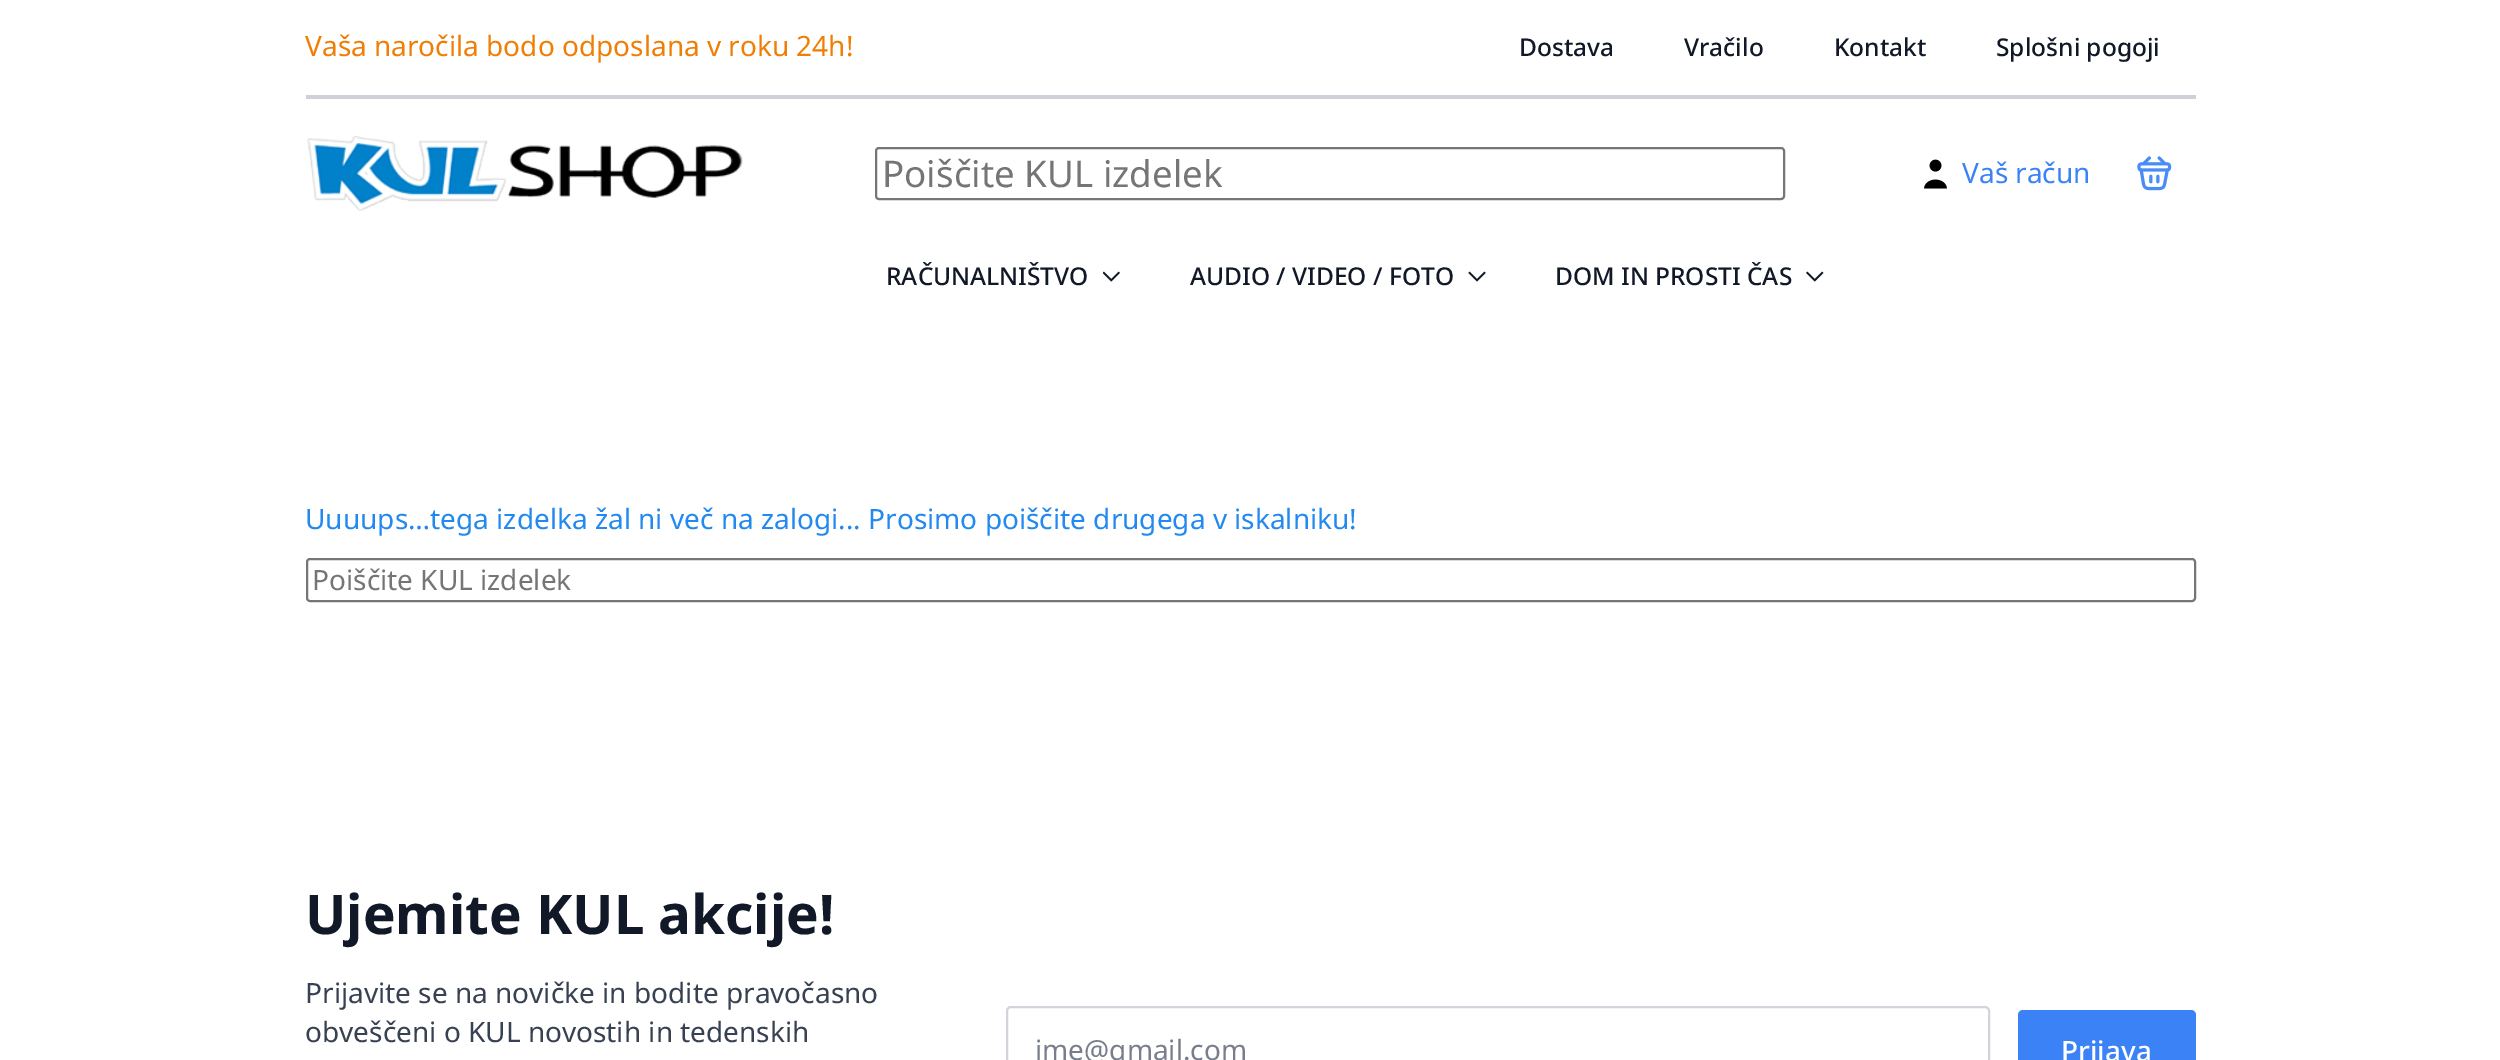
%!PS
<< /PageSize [2500 1060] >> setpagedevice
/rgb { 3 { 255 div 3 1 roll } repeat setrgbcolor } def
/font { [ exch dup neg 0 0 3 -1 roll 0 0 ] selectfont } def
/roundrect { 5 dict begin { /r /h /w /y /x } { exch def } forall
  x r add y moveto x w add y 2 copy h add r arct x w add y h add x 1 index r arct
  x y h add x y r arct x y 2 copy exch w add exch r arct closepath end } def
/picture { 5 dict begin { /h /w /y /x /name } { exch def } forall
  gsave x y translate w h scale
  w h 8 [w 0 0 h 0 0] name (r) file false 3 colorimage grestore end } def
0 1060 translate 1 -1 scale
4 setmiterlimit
255 255 255 rgb
0 0 2500 1060 rectfill
210 207 220 rgb
306 95 1890 4 rectfill
(img/1.rgb) 307 136 436 75 picture
118 118 118 rgb
2 setlinewidth
876 148 908 51 3 roundrect stroke
(img/2.rgb) 1924 159 23 30 picture
(img/3.rgb) 2137 156 35 35 picture
(img/4.rgb) 1103 271 17 11 picture
(img/5.rgb) 1468 271 18 11 picture
(img/6.rgb) 1806 271 18 11 picture
307 559 1888 42 3 roundrect stroke
209 213 219 rgb
1007 1007 982 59 4 roundrect stroke
59 130 246 rgb
2018 1010 178 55 5 roundrect fill
/NotoSans-Regular 28 font
241 126 4 rgb
305 56 moveto (Vaša naročila bodo odposlana v roku 24h!) show
/NotoSans-Medium 24.5 font
17 24 39 rgb
[
  [(Dostava) 1519 56]
  [(Vračilo) 1684 56]
  [(Kontakt) 1834 56]
  [(Splošni pogoji) 1996 56]
] { aload pop moveto show } forall
/NotoSans-Regular 36.75 font
117 117 117 rgb
882 187 moveto (Poiščite KUL izdelek) show
/NotoSans-Regular 28 font
59 130 246 rgb
1962 183 moveto (Vaš račun) show
/NotoSans-Medium 24.5 font
17 24 39 rgb
[
  [(RAČUNALNIŠTVO) 886 285]
  [(AUDIO / VIDEO / FOTO) 1190 285]
  [(DOM IN PROSTI ČAS) 1555 285]
] { aload pop moveto show } forall
/NotoSans-Regular 28 font
33 137 239 rgb
305 529 moveto (Uuuups…tega izdelka žal ni več na zalogi... Prosimo poiščite drugega v iskalniku!) show
117 117 117 rgb
312 590 moveto (Poiščite KUL izdelek) show
/NotoSans-Bold 54.75 font
17 24 39 rgb
305 934 moveto (Ujemite KUL akcije!) show
/NotoSans-Regular 28 font
55 65 81 rgb
305 1003 moveto (Prijavite se na novičke in bodite pravočasno) show
305 1042 moveto (obveščeni o KUL novostih in tedenskih) show
120 126 139 rgb
1035 1060 moveto (ime@gmail.com) show
/NotoSans-Medium 28 font
255 255 255 rgb
2061 1061 moveto (Prijava) show
showpage
